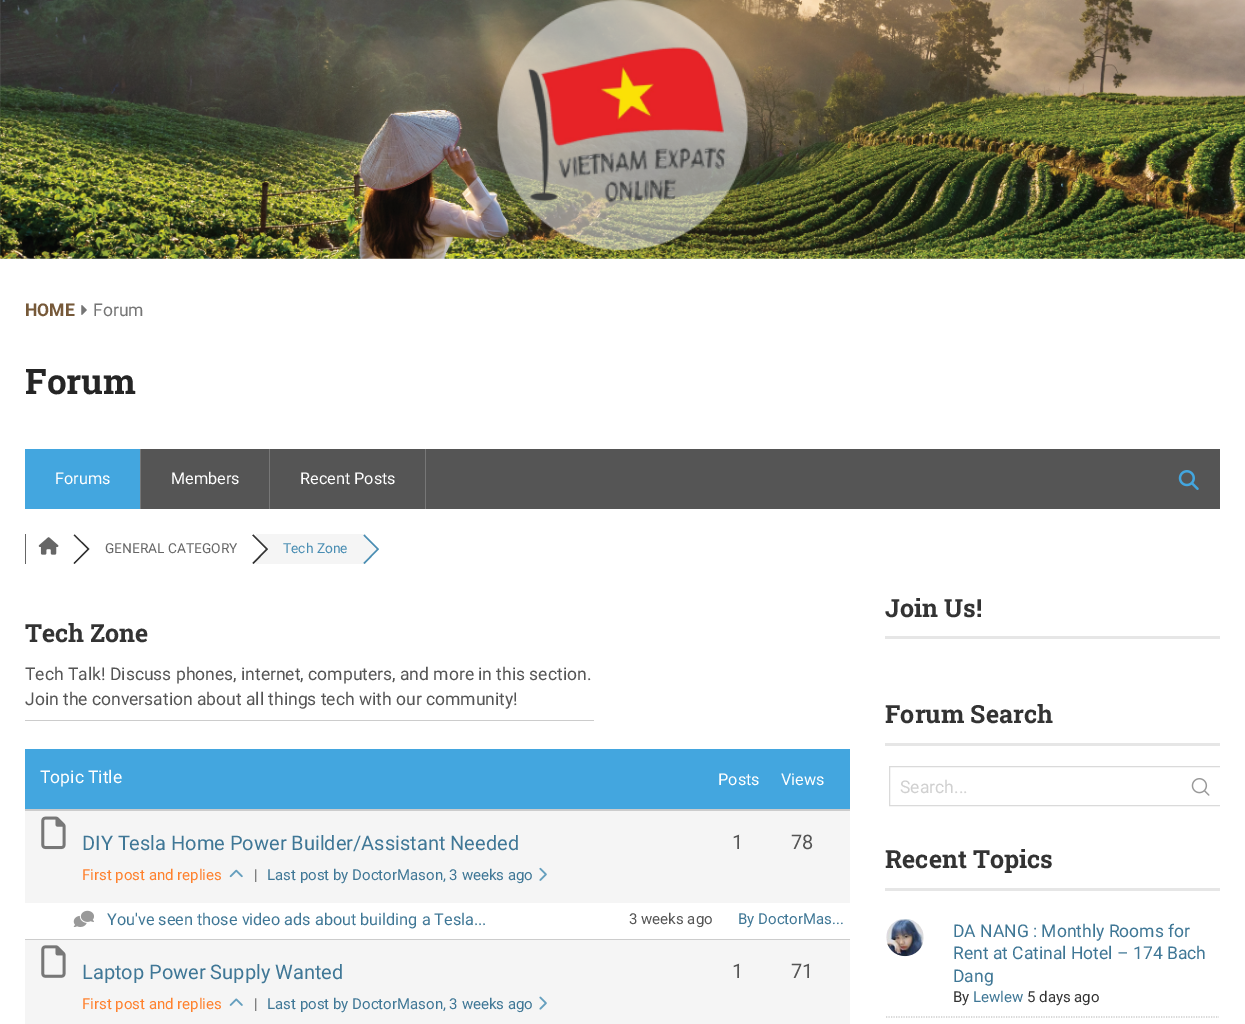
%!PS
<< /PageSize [1245 1024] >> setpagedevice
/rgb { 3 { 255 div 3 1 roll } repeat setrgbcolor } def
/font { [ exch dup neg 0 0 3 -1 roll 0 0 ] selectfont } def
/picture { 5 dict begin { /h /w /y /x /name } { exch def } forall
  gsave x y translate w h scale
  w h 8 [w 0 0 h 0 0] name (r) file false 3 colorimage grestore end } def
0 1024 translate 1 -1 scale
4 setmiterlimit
255 255 255 rgb
0 0 1245 1024 rectfill
(img/1.rgb) 0 0 1245 259 picture
(img/2.rgb) 497 0 251 250 picture
(img/3.rgb) 81 305 6 10 picture
[
  [141 449 1079 60 85 85 85]
  [25 449 115 60 67 166 223]
  [140 449 1 60 119 119 119]
  [269 449 1 60 119 119 119]
  [425 449 1 60 119 119 119]
] { aload pop rgb rectfill } forall
(img/4.rgb) 1178 470 21 20 picture
102 102 102 rgb
25 534 1 30 rectfill
(img/5.rgb) 38 537 21 18 picture
51 51 51 rgb
74.5 534.5 moveto 73.5 535.5 lineto 87 549 lineto 73.5 563 lineto 74.5 564 lineto 89.5 549 lineto closepath fill
255 255 255 rgb
72 534.5 moveto 87 549 lineto 72 564 lineto 57 549 lineto closepath fill
245 245 245 rgb
256 534 110 30 rectfill
51 51 51 rgb
253.5 534.5 moveto 252 535.5 lineto 265.5 549 lineto 252 562.5 lineto 253.5 564 lineto 268 549 lineto closepath fill
74 142 179 rgb
364.5 534.5 moveto 363 536 lineto 376.5 549 lineto 363 562.5 lineto 364.5 564 lineto 379 549 lineto closepath fill
[
  [25 720 569 1 204 204 204]
  [25 749 825 60 67 166 223]
  [25 809 825 2 204 204 204]
  [25 811 825 92 245 245 245]
] { aload pop rgb rectfill } forall
(img/6.rgb) 41 816 25 34 picture
(img/7.rgb) 229 869 14 9 picture
(img/8.rgb) 539 867 8 14 picture
(img/9.rgb) 73 910 21 17 picture
204 204 204 rgb
25 939 825 1 rectfill
245 245 245 rgb
25 940 825 84 rectfill
(img/10.rgb) 41 945 25 33 picture
(img/11.rgb) 229 998 14 8 picture
(img/12.rgb) 539 996 8 14 picture
230 230 230 rgb
885 636 335 3 rectfill
885 743 335 3 rectfill
gsave
885 689 335 145 rectclip
218 218 218 rgb
889.5 766.5 331 39 rectstroke
grestore
(img/13.rgb) 1191 778 19 18 picture
885 888 335 3 rectfill
204 204 204 rgb
1.2 setlinewidth
[1.25 1.25] 0 setdash
886 1017 moveto 1219 1017 lineto stroke
(img/14.rgb) 886 919 38 38 picture
/Roboto-Bold 17.5 font
118 89 57 rgb
25 316 moveto (HOME) show
/Roboto-Regular 17.5 font
117 117 117 rgb
93 316 moveto (Forum) show
/RobotoSlab-Bold 35 font
37 37 37 rgb
25 394 moveto (Forum) show
/Roboto-Regular 16.25 font
255 255 255 rgb
[
  [(Forums) 55 484]
  [(Members) 171 484]
  [(Recent Posts) 300 484]
] { aload pop moveto show } forall
/Roboto-Regular 13.75 font
102 102 102 rgb
105 553 moveto (GENERAL CATEGORY) show
255 255 255 rgb
251 534.5 moveto 265.5 549 lineto 251 564 lineto 236 549 lineto closepath fill
74 142 179 rgb
283 553 moveto (Tech Zone) show
245 245 245 rgb
362 534.5 moveto 376.5 549 lineto 362 564 lineto 347 549 lineto closepath fill
/RobotoSlab-Bold 25 font
51 51 51 rgb
25 642 moveto (Tech Zone) show
/Roboto-Regular 17.5 font
85 85 85 rgb
25 680 moveto (Tech Talk! Discuss phones, internet, computers, and more in this section.) show
25 705 moveto (Join the conversation about all things tech with our community!) show
255 255 255 rgb
40 783 moveto (Topic Title) show
/Roboto-Regular 16.25 font
718 785 moveto (Posts) show
781 785 moveto (Views) show
/Roboto-Regular 20 font
63 119 150 rgb
82 850 moveto (DIY Tesla Home Power Builder/Assistant Needed) show
/Roboto-Regular 15 font
255 129 45 rgb
82 880 moveto (First post and replies) show
85 85 85 rgb
254 880 moveto (|) show
63 119 150 rgb
267 880 moveto (Last post by DoctorMason, 3 weeks ago) show
/Roboto-Regular 20 font
85 85 85 rgb
732 849 moveto (1) show
791 849 moveto (78) show
/Roboto-Regular 16.25 font
63 119 150 rgb
107 925 moveto (You've seen those video ads about building a Tesla...) show
/Roboto-Regular 15 font
85 85 85 rgb
629 924 moveto (3 weeks ago) show
63 119 150 rgb
738 924 moveto (By DoctorMas...) show
/Roboto-Regular 20 font
82 979 moveto (Laptop Power Supply Wanted) show
/Roboto-Regular 15 font
255 129 45 rgb
82 1009 moveto (First post and replies) show
85 85 85 rgb
254 1009 moveto (|) show
63 119 150 rgb
267 1009 moveto (Last post by DoctorMason, 3 weeks ago) show
/Roboto-Regular 20 font
85 85 85 rgb
732 978 moveto (1) show
791 978 moveto (71) show
/RobotoSlab-Bold 25 font
51 51 51 rgb
885 617 moveto (Join Us!) show
885 723 moveto (Forum Search) show
/Roboto-Regular 17.5 font
208 208 208 rgb
900 793 moveto (Search...) show
/RobotoSlab-Bold 25 font
51 51 51 rgb
885 868 moveto (Recent Topics) show
/Roboto-Regular 17.5 font
63 119 150 rgb
[
  [(DA NANG : Monthly Rooms for) 953 937]
  [(Rent at Catinal Hotel – 174 Bach) 953 959]
  [(Dang) 953 982]
] { aload pop moveto show } forall
/Roboto-Regular 15 font
51 51 51 rgb
953 1002 moveto (By) show
63 119 150 rgb
973 1002 moveto (Lewlew) show
51 51 51 rgb
1027 1002 moveto (5 days ago) show
showpage
